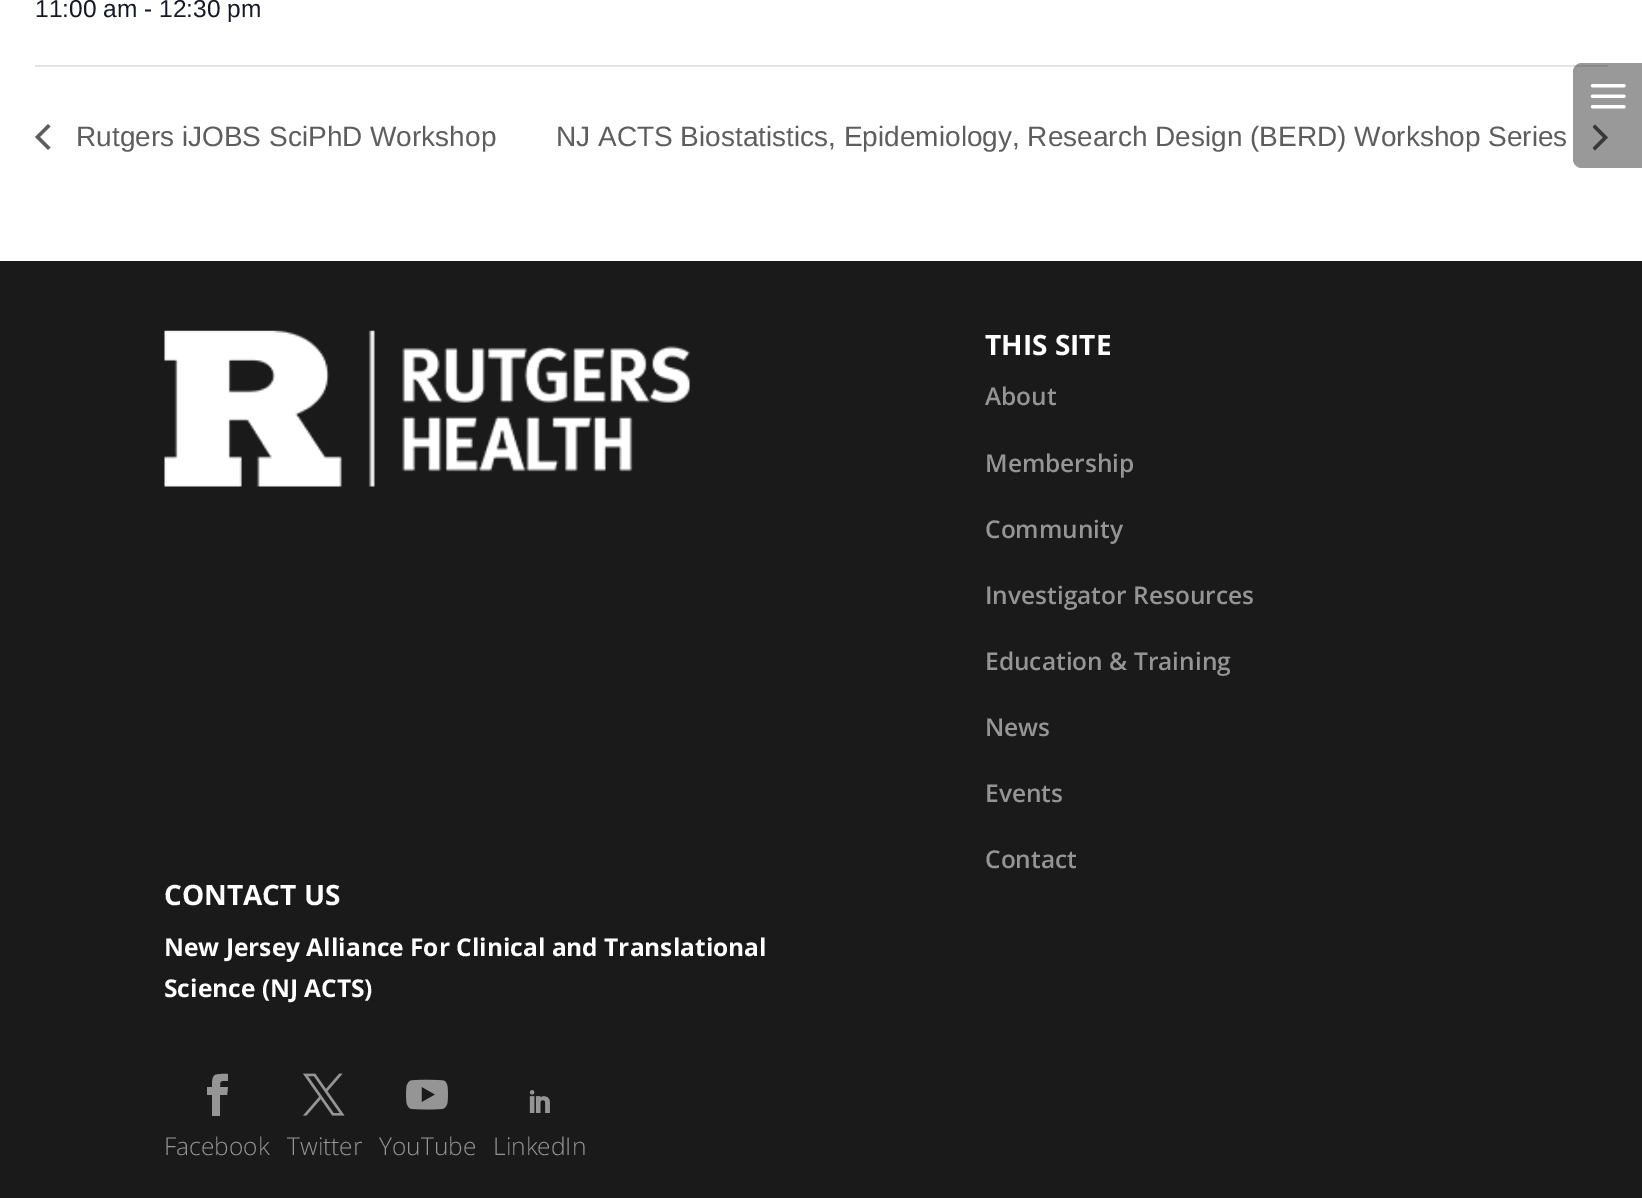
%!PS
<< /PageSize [1642 1198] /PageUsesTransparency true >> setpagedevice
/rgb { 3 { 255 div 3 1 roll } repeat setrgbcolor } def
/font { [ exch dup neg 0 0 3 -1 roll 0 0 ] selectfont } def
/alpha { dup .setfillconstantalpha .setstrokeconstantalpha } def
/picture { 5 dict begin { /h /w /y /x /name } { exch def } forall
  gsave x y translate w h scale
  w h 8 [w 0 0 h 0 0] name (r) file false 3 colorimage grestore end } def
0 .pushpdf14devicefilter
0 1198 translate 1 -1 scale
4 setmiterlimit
255 255 255 rgb
0 0 1642 1198 rectfill
228 228 228 rgb
35 65 1573 2 rectfill
93 93 93 rgb
50.5 147.5 moveto 48 150 lineto 35 137 lineto 48 124 lineto 50.5 126.5 lineto 40 137 lineto closepath fill
gsave
1593 124 15 27 rectclip
1592.5 127 moveto 1595 124.5 lineto 1608 137.5 lineto 1595 150.5 lineto 1592.5 148 lineto 1603 137.5 lineto closepath fill
grestore
26 26 26 rgb
0 261 1642 937 rectfill
(img/1.rgb) 164 330 526 157 picture
149 149 149 rgb
212 1116 moveto 220 1116 lineto 220 1095 lineto 227 1095 lineto 228 1087 lineto 220 1087 lineto 220 1080 220 1081 228 1081 curveto 228 1074 lineto 214 1074 212 1073 212 1087 curveto 207 1087 lineto 207 1095 lineto 212 1095 lineto closepath fill
(img/2.rgb) 303 1073 42 43 picture
(img/3.rgb) 406 1079 42 31 picture
(img/4.rgb) 529 1090 21 23 picture
0.4 alpha
0 0 0 rgb
1582 63 moveto 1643 63 lineto 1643 168 lineto 1582 168 lineto 1577 168 1573 164 1573 159 curveto 1573 72 lineto 1573 67 1577 63 1582 63 curveto closepath fill
1 alpha
(img/5.rgb) 1590 84 36 25 picture
/LiberationSans-Regular 24.5 font
20 24 39 rgb
35 17 moveto (11:00 am - 12:30 pm) show
/LiberationSans-Regular 28 font
93 93 93 rgb
76 146 moveto (Rutgers iJOBS SciPhD Workshop) show
556 146 moveto (NJ ACTS Biostatistics, Epidemiology, Research Design \(BERD\) Workshop Series) show
/OpenSans-Bold 28 font
255 255 255 rgb
985 355 moveto (THIS SITE) show
/OpenSans-SemiBold 24.5 font
149 149 149 rgb
[
  [(About) 985 405]
  [(Membership) 985 472]
  [(Community) 985 538]
  [(Investigator Resources) 985 604]
  [(Education & Training) 985 670]
  [(News) 985 736]
  [(Events) 985 802]
  [(Contact) 985 868]
] { aload pop moveto show } forall
/OpenSans-Bold 28 font
255 255 255 rgb
164 905 moveto (CONTACT US) show
/OpenSans-Bold 24.5 font
164 956 moveto (New Jersey Alliance For Clinical and Translational) show
164 997 moveto (Science \(NJ ACTS\)) show
/OpenSans-Light 24.5 font
149 149 149 rgb
[
  [(Facebook) 164 1155]
  [(Twitter) 287 1155]
  [(YouTube) 379 1155]
  [(LinkedIn) 493 1155]
] { aload pop moveto show } forall
.poppdf14devicefilter showpage
